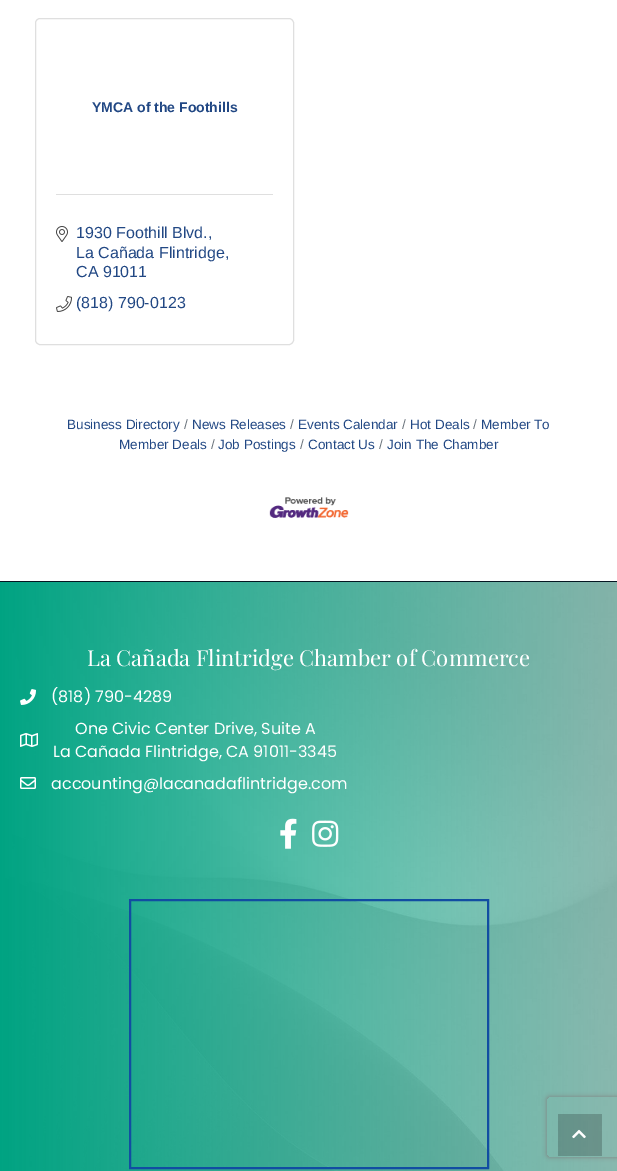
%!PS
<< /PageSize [617 1171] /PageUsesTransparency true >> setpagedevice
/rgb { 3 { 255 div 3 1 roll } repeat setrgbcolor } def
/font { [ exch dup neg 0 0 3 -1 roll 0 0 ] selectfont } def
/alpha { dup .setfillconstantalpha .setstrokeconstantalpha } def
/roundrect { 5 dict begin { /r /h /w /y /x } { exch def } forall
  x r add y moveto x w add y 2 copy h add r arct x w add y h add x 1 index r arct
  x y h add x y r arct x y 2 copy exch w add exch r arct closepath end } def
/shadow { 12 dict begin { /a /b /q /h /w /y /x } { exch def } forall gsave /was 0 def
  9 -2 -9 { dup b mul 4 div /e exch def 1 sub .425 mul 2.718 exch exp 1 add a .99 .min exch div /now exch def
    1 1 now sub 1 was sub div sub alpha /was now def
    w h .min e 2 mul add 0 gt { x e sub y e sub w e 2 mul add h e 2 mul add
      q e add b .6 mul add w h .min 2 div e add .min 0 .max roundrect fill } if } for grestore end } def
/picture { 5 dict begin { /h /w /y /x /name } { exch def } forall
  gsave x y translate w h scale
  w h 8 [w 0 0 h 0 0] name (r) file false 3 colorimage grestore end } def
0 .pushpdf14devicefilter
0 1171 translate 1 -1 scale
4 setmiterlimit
255 255 255 rgb
0 0 617 1171 rectfill
223 223 223 rgb
35.5 18.5 258 326 4.5 roundrect stroke
56 194 217 1 rectfill
(img/1.rgb) 56 226 12 16 picture
(img/2.rgb) 56 296 16 16 picture
(img/3.rgb) 269 497 80 21 picture
(img/4.rgb) 0 582 617 589 picture
5 22 34 rgb
0 581 617 1 rectfill
(img/5.rgb) 20 689 16 16 picture
(img/6.rgb) 20 733 18 14 picture
(img/7.rgb) 20 777 16 12 picture
(img/8.rgb) 280 818 17 31 picture
(img/9.rgb) 312 820 27 27 picture
17 77 162 rgb
2 setlinewidth
130 900 358 268 rectstroke
gsave
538 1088 moveto 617 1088 lineto 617 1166 lineto 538 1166 lineto closepath 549 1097 moveto 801 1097 lineto 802 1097 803 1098 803 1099 curveto 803 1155 lineto 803 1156 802 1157 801 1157 curveto 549 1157 lineto 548 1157 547 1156 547 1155 curveto 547 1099 lineto 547 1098 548 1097 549 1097 curveto closepath eoclip newpath
128 128 128 rgb
547 1097 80 60 2 2.5 1 shadow
grestore
0.2 alpha
0 0 0 rgb
558 1114 44 42 rectfill
1 alpha
(img/10.rgb) 572 1129 14 10 picture
/LiberationSans-Bold 14 font
34 72 132 rgb
92 112 moveto (YMCA of the Foothills) show
/LiberationSans-Regular 16 font
[
  [(1930 Foothill Blvd.,) 76 238]
  [(La Cañada Flintridge,) 76 258]
  [(CA 91011) 76 277]
  [(\(818\) 790-0123) 76 308]
] { aload pop moveto show } forall
/LiberationSans-Regular 13.5 font
67 429 moveto (Business Directory) show
108 117 125 rgb
473 429 moveto (/) show
34 72 132 rgb
481 429 moveto (Member To) show
119 449 moveto (Member Deals) show
108 117 125 rgb
184 429 moveto (/) show
34 72 132 rgb
192 429 moveto (News Releases) show
108 117 125 rgb
290 429 moveto (/) show
34 72 132 rgb
298 429 moveto (Events Calendar) show
108 117 125 rgb
402 429 moveto (/) show
34 72 132 rgb
410 429 moveto (Hot Deals) show
108 117 125 rgb
211 449 moveto (/) show
34 72 132 rgb
218 449 moveto (Job Postings) show
108 117 125 rgb
300 449 moveto (/) show
34 72 132 rgb
308 449 moveto (Contact Us) show
108 117 125 rgb
379 449 moveto (/) show
34 72 132 rgb
387 449 moveto (Join The Chamber) show
/PlayfairDisplay-Regular 22 font
255 255 255 rgb
87 666 moveto (La Cañada Flintridge Chamber of Commerce) show
/Poppins-Regular 16 font
[
  [(\(818\) 790-4289) 51 702]
  [(One Civic Center Drive, Suite A) 75 734]
  [(La Cañada Flintridge, CA 91011-3345) 53 757]
  [(accounting@lacanadaflintridge.com) 51 789]
] { aload pop moveto show } forall
.poppdf14devicefilter showpage
